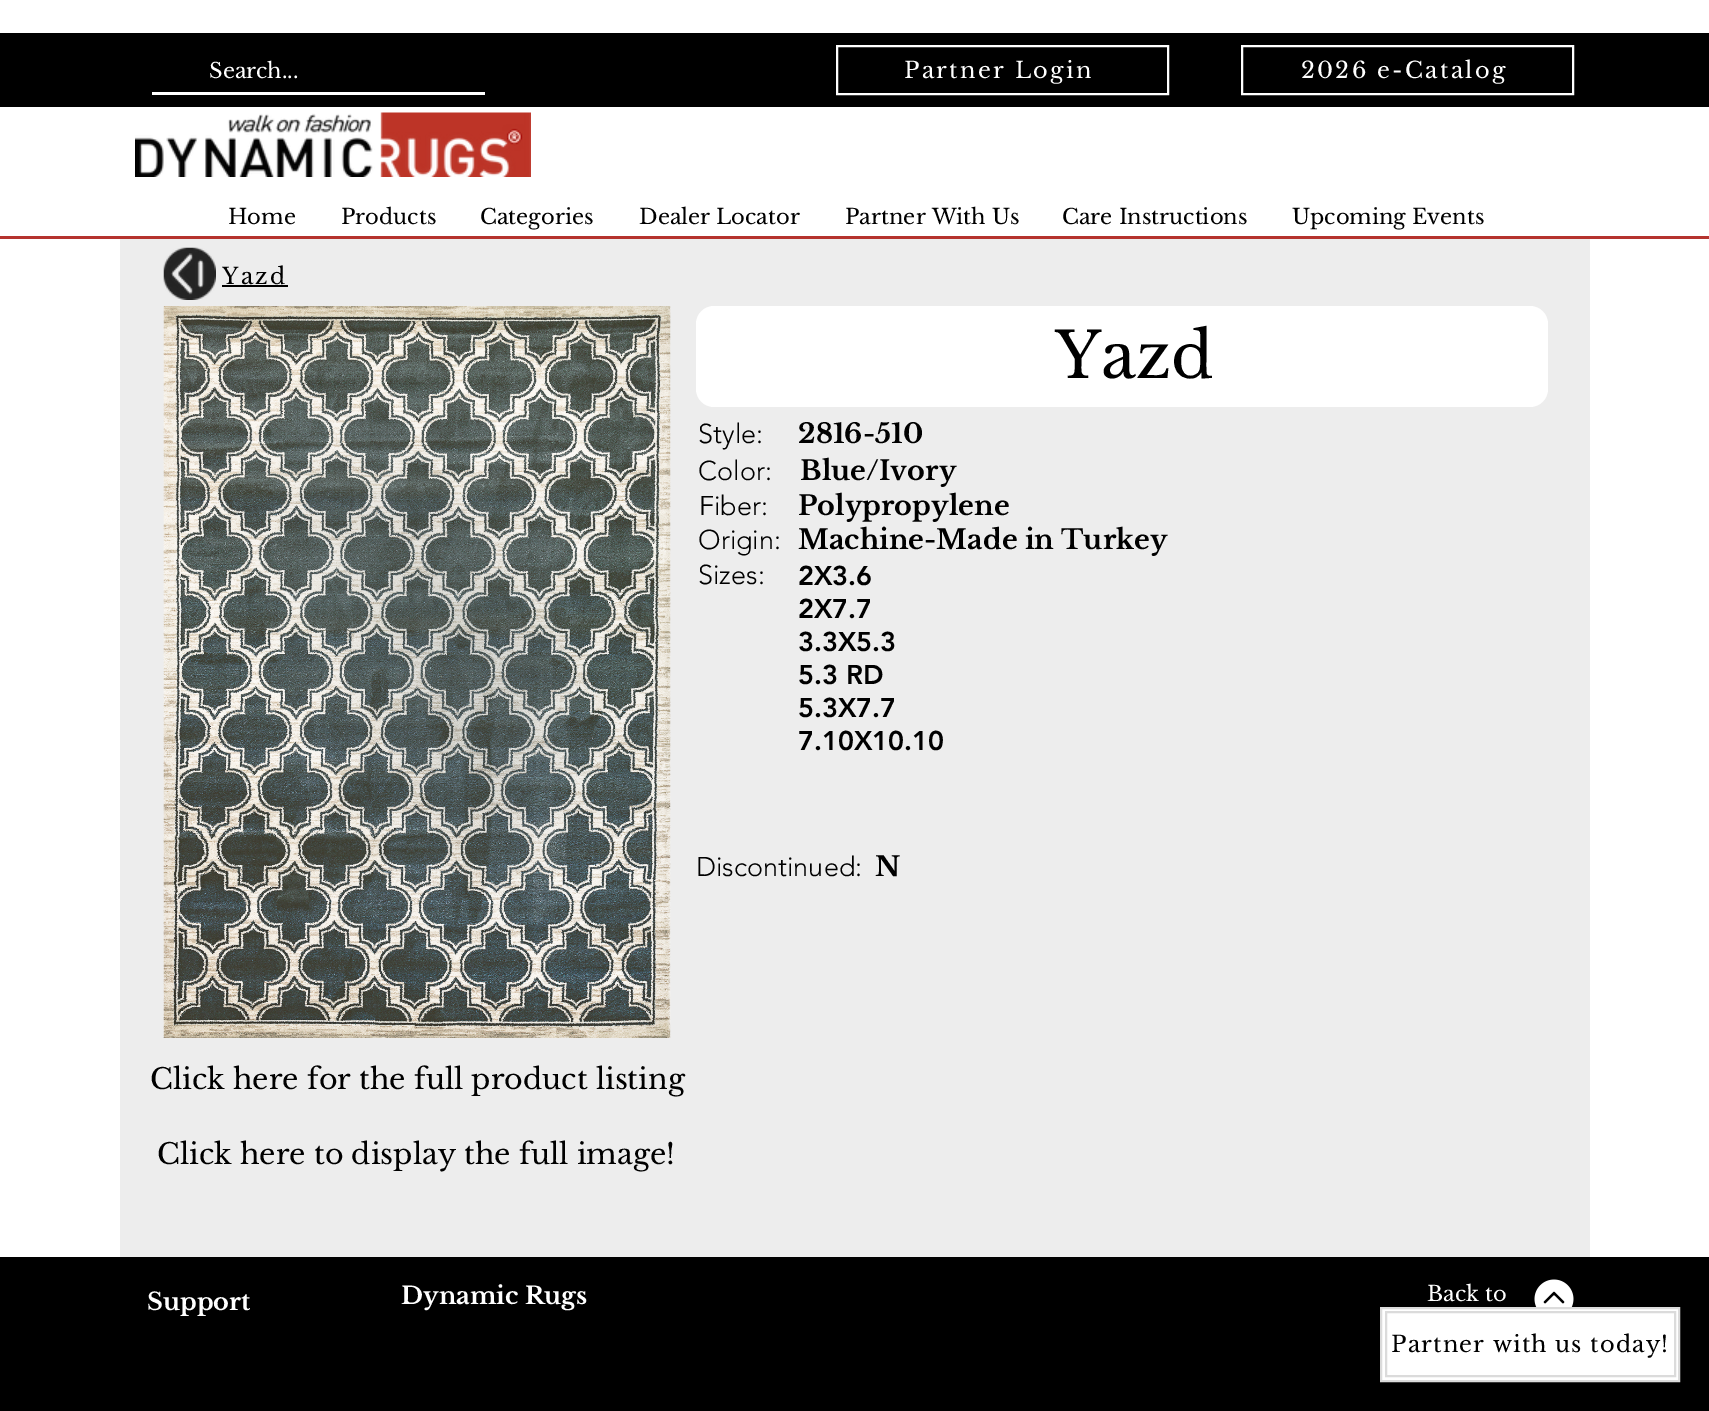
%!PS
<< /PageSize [1709 1411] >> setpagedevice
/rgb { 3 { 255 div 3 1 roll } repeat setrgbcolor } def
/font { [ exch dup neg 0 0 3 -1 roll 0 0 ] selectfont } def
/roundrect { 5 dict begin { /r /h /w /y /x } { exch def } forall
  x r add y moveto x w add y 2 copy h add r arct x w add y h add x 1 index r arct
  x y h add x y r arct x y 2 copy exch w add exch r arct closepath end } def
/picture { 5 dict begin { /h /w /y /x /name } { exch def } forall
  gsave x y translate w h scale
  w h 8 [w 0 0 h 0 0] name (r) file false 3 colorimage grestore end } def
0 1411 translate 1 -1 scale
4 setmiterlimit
255 255 255 rgb
0 0 1709 1411 rectfill
0 0 0 rgb
0 33 1709 74 rectfill
255 255 255 rgb
152 92 333 3 rectfill
2 setlinewidth
837 46 331 48 rectstroke
1242 46 331 48 rectstroke
(img/1.rgb) 135 112 396 65 picture
181 51 46 rgb
0 236 1709 3 rectfill
237 237 237 rgb
120 239 1470 1018 rectfill
(img/2.rgb) 163 247 53 53 picture
0 0 0 rgb
222 285 66 2 rectfill
(img/3.rgb) 163 306 508 732 picture
255 255 255 rgb
696 306 852 101 18 roundrect fill
0 0 0 rgb
0 1257 1709 154 rectfill
(img/4.rgb) 1534 1279 40 28 picture
255 255 255 rgb
1381 1308 moveto 1679 1308 lineto 1679 1381 lineto 1381 1381 lineto closepath gsave fill grestore
219 219 219 rgb
stroke
1386 1312 289 64 rectstroke
/LibreBaskerville-Regular 21 font
255 255 255 rgb
209 78 moveto (Search...) show
/LibreBaskerville-Regular 22.5 font
904 78 moveto 2.25 0 (Partner Login) ashow
1301 78 moveto 2.25 0 (2026 e-Catalog) ashow
/LibreBaskerville-Regular 21 font
0 0 0 rgb
[
  [(Home) 228 224]
  [(Products) 341 224]
  [(Categories) 480 224]
  [(Dealer Locator) 639 224]
  [(Partner With Us) 845 224]
  [(Care Instructions) 1062 224]
  [(Upcoming Events) 1292 224]
] { aload pop moveto show } forall
/LibreBaskerville-Regular 22.5 font
222 284 moveto 2.25 0 (Yazd) ashow
/LibreBaskerville-Regular 63 font
1055 378 moveto (Yazd) show
/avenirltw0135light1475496-Light 27 font
698 443 moveto (Style:) show
/LibreBaskerville-Bold 27 font
798 443 moveto (2816-510) show
/avenirltw0135light1475496-Light 27 font
698 480 moveto (Color:) show
/LibreBaskerville-Bold 27 font
800 480 moveto (Blue/Ivory) show
/avenirltw0135light1475496-Light 27 font
699 515 moveto (Fiber:) show
/LibreBaskerville-Bold 27 font
798 515 moveto (Polypropylene) show
/avenirltw0135light1475496-Light 27 font
698 549 moveto (Origin:) show
/LibreBaskerville-Bold 27 font
798 549 moveto (Machine-Made in Turkey) show
/avenirltw0135light1475496-Light 27 font
698 584 moveto (Sizes:) show
/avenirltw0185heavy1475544-Black 27 font
[
  [(2X3.6) 798 585]
  [(2X7.7) 798 618]
  [(3.3X5.3) 798 651]
  [(5.3 RD) 798 684]
  [(5.3X7.7) 798 717]
  [(7.10X10.10) 798 750]
] { aload pop moveto show } forall
/avenirltw0135light1475496-Light 27 font
696 876 moveto (Discontinued:) show
/LibreBaskerville-Bold 27 font
875 876 moveto (N) show
/LibreBaskerville-Regular 28.5 font
150 1089 moveto (Click here for the full product listing) show
157 1164 moveto (Click here to display the full image!) show
/LibreBaskerville-Bold 24 font
255 255 255 rgb
147 1310 moveto (Support) show
401 1304 moveto (Dynamic Rugs) show
/LibreBaskerville-Regular 21 font
1427 1301 moveto (Back to) show
/LibreBaskerville-Regular 22.5 font
0 0 0 rgb
1391 1352 moveto 1.1 0 (Partner with us today!) ashow
showpage
